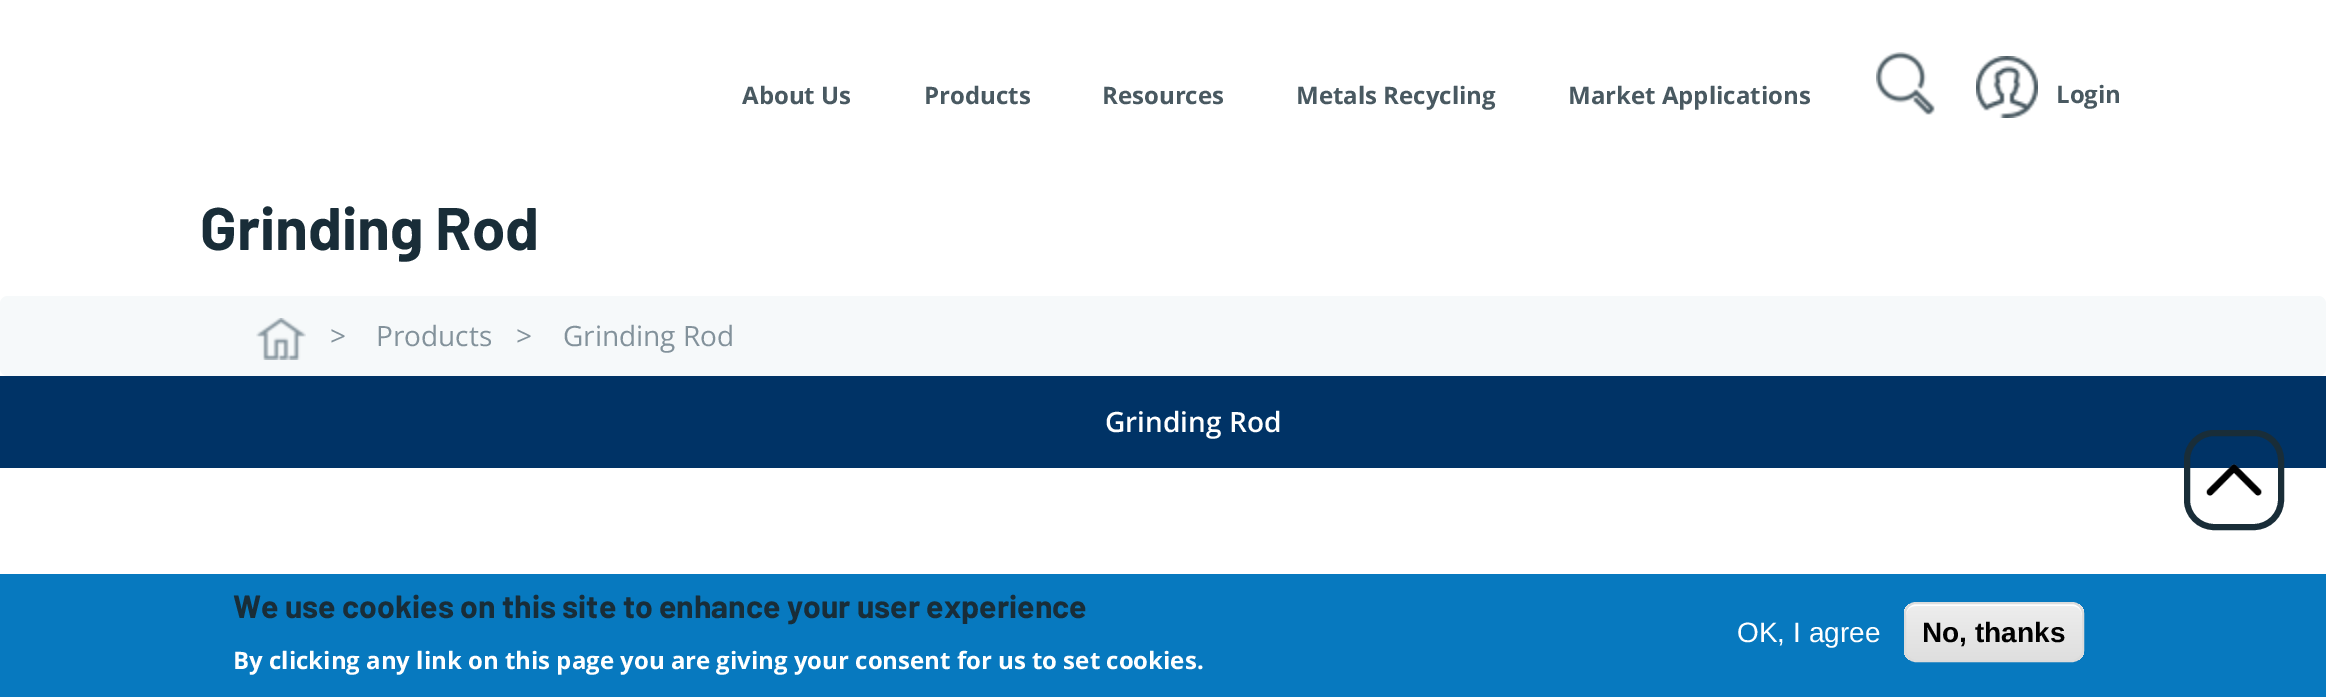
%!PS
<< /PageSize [2326 697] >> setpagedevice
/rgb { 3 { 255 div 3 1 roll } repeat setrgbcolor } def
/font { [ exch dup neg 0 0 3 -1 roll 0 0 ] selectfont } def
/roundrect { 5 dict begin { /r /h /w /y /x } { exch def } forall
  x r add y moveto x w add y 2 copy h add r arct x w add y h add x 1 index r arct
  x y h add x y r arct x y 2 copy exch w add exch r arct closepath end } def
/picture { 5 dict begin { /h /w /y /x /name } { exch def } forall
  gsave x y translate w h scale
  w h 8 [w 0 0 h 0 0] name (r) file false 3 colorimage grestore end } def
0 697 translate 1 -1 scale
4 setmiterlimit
255 255 255 rgb
0 0 2326 697 rectfill
(img/1.rgb) 1876 52 59 63 picture
(img/2.rgb) 1976 56 62 62 picture
246 249 250 rgb
0 296 2326 80 8 roundrect fill
(img/3.rgb) 256 318 50 42 picture
0 51 102 rgb
0 376 2326 92 rectfill
25 45 56 rgb
6 setlinewidth
2187 433 94 94 27 roundrect stroke
(img/4.rgb) 2206 464 56 32 picture
7 121 191 rgb
0 574 2326 123 rectfill
gsave
1904 602 180 60 12 roundrect clip newpath
gsave 1904 604 moveto 2084 604 lineto 2084 660 lineto 1904 660 lineto closepath clip newpath
<< /ShadingType 2 /ColorSpace /DeviceRGB /Coords [1994 604 1994 660] /Extend [true true] /Function << /FunctionType 3 /Domain [0 1] /Functions [<< /FunctionType 2 /Domain [0 1] /C0 [0.929 0.929 0.929] /C1 [0.929 0.929 0.929] /N 1 >> << /FunctionType 2 /Domain [0 1] /C0 [0.929 0.929 0.929] /C1 [0.875 0.875 0.875] /N 1 >>] /Bounds [0.05] /Encode [0 1 0 1] >> >> shfill grestore
grestore
255 255 255 rgb
1916 606 moveto 2072 606 lineto 2078 606 2082 610 2082 616 curveto 2082 614 lineto 2082 608 2078 604 2072 604 curveto 1916 604 lineto 1910 604 1906 608 1906 614 curveto 1906 616 lineto 1906 610 1910 606 1916 606 curveto closepath fill
220 220 220 rgb
2 setlinewidth
1905 603 178 58 11 roundrect stroke
/OpenSans-Bold 24 font
73 89 97 rgb
[
  [(About Us) 742 104]
  [(Products) 924 104]
  [(Resources) 1102 104]
  [(Metals Recycling) 1296 104]
  [(Market Applications) 1568 104]
  [(Login) 2056 103]
] { aload pop moveto show } forall
/Barlow-Bold 60 font
25 45 56 rgb
200 250 moveto (Grinding Rod) show
/OpenSans-Regular 28 font
131 146 155 rgb
[
  [(>) 330 346]
  [(Products) 376 346]
  [(>) 516 346]
  [(Grinding Rod) 563 346]
] { aload pop moveto show } forall
/OpenSans-SemiBold 28 font
255 255 255 rgb
1105 432 moveto (Grinding Rod) show
/Barlow-Bold 32 font
25 45 56 rgb
233 618 moveto (We use cookies on this site to enhance your user experience) show
/OpenSans-Bold 24 font
255 255 255 rgb
233 669 moveto (By clicking any link on this page you are giving your consent for us to set cookies.) show
/LiberationSans-Regular 28 font
1737 642 moveto (OK, I agree) show
/LiberationSans-Bold 28 font
0 0 0 rgb
1922 642 moveto (No, thanks) show
showpage
